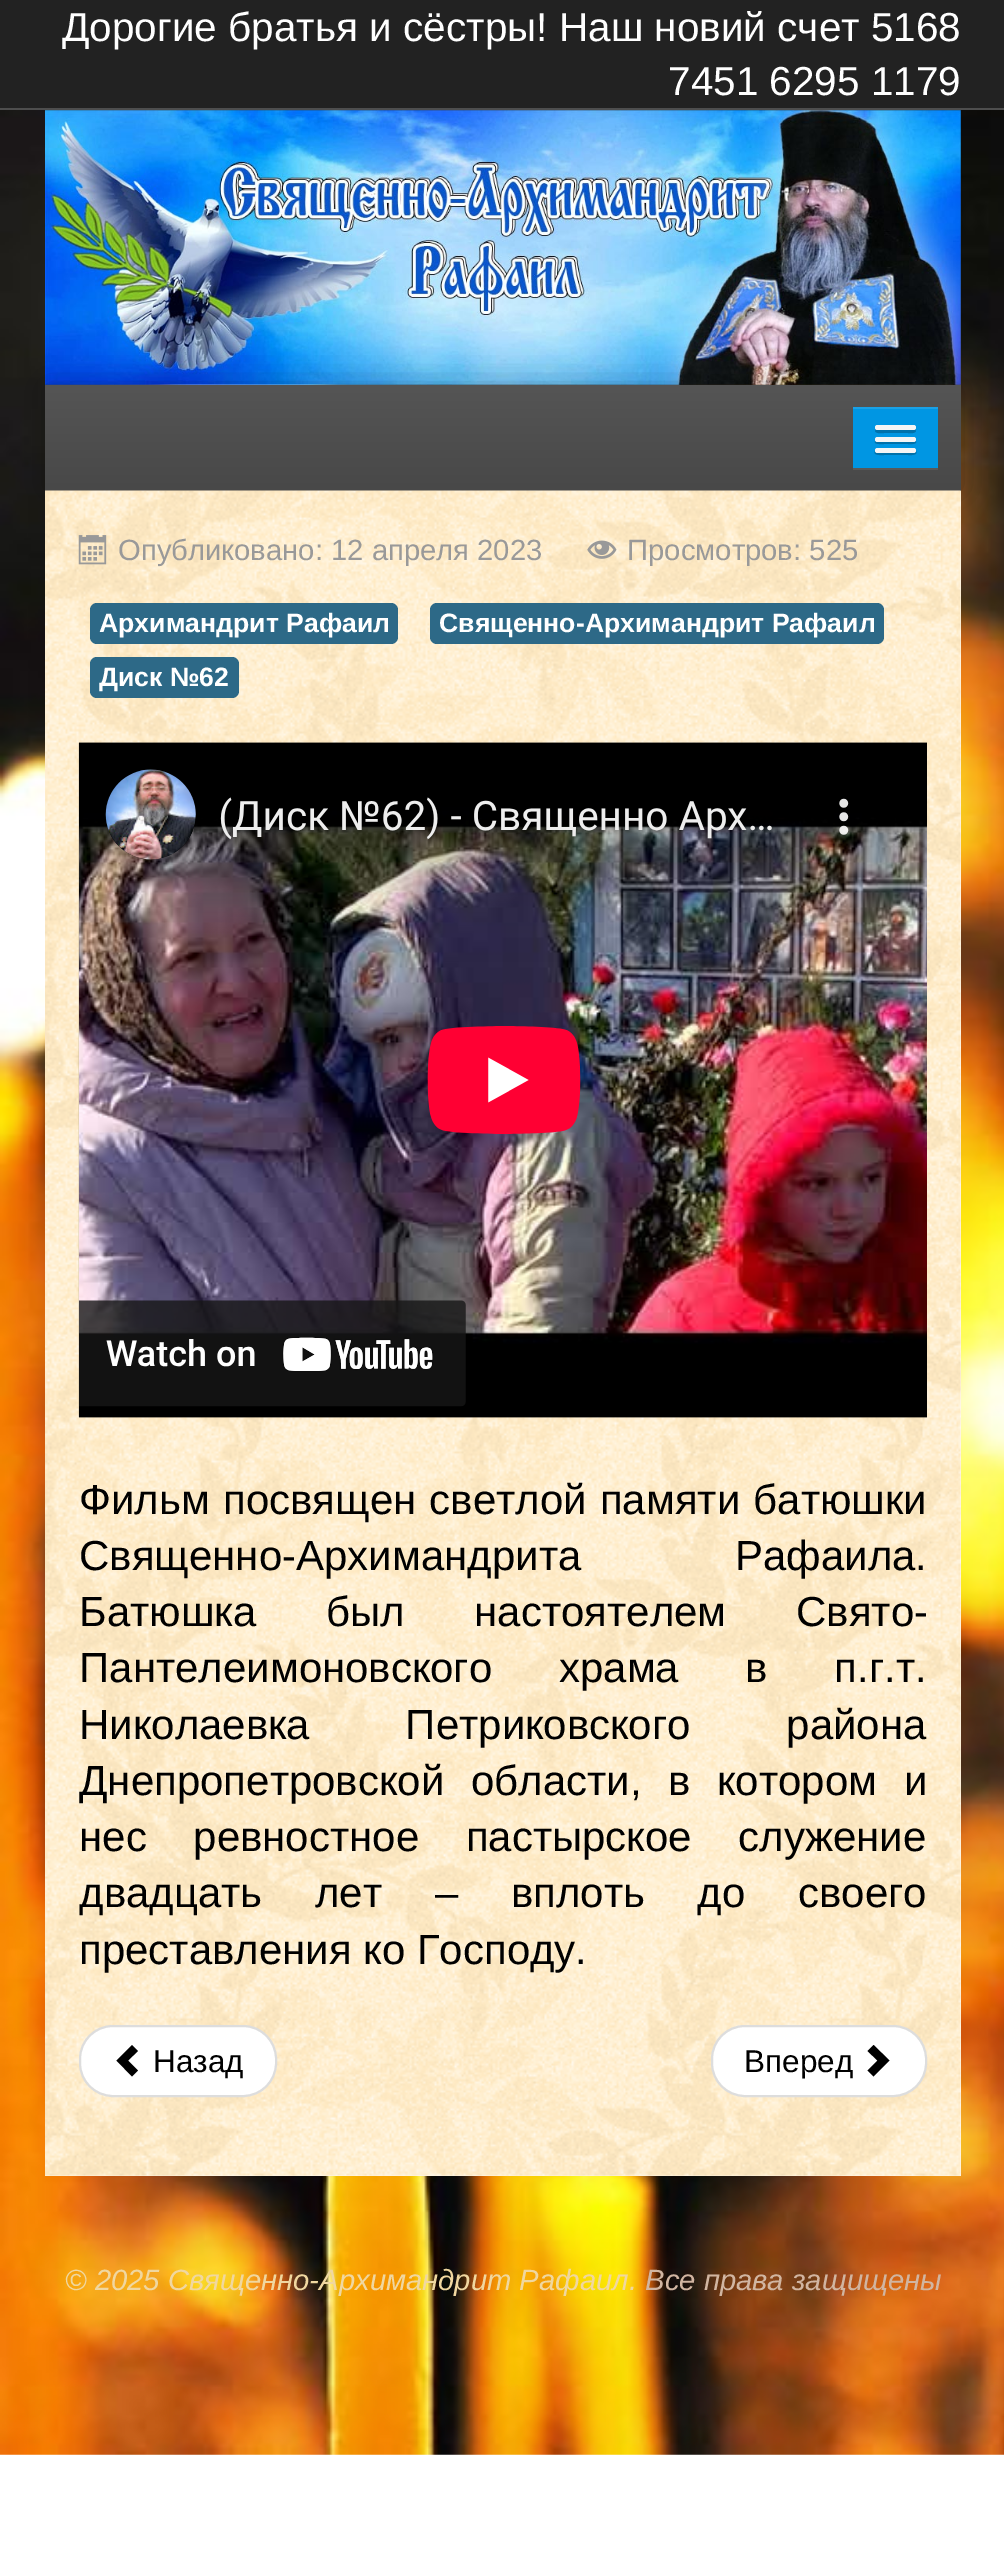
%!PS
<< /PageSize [1004 2575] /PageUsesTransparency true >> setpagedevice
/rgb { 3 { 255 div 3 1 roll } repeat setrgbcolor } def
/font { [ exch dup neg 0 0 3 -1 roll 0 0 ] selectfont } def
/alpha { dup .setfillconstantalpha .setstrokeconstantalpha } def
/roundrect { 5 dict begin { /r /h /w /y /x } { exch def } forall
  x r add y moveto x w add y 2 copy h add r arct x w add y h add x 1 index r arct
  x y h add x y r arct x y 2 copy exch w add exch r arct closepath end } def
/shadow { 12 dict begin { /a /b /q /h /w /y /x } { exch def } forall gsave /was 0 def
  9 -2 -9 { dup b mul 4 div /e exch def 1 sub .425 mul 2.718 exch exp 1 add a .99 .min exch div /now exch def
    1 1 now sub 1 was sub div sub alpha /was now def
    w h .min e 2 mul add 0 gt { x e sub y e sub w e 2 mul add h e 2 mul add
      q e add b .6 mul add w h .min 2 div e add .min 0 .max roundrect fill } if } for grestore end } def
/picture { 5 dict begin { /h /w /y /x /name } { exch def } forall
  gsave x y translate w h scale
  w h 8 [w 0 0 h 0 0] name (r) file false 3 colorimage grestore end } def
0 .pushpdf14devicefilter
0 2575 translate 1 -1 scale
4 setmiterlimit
255 255 255 rgb
0 0 1004 2575 rectfill
(img/1.rgb) 0 110 1004 2345 picture
34 34 34 rgb
0 0 1004 108 rectfill
78 78 78 rgb
0 108 1004 2 rectfill
(img/2.rgb) 45 110 916 275 picture
0 0 0 rgb
45 385 916 106 0 17 0.25 shadow
gsave 45 385 moveto 961 385 lineto 961 491 lineto 45 491 lineto closepath clip newpath
<< /ShadingType 2 /ColorSpace /DeviceRGB /Coords [503 385 503 491] /Extend [true true] /Function << /FunctionType 2 /Domain [0 1] /C0 [0.333 0.333 0.333] /C1 [0.282 0.282 0.282] /N 1 >> >> shfill grestore
[
  [853 468 85 2 89 89 89]
  [853 409 85 59 0 150 227]
  [853 407 85 2 26 161 230]
] { aload pop rgb rectfill } forall
0 113 170 rgb
876 429 moveto 875 431 lineto 876 434 882 433 884 433 curveto 908 433 lineto 909 433 915 434 916 431 curveto 915 429 lineto 914 430 lineto 877 430 lineto closepath fill
245 245 245 rgb
875 425 41 5 2.5 roundrect fill
0 113 170 rgb
876 440 moveto 871 445 883 444 884 444 curveto 908 444 lineto 908 444 920 445 915 440 curveto 914 441 lineto 877 441 lineto closepath fill
245 245 245 rgb
875 437 41 5 2.5 roundrect fill
0 113 170 rgb
875 451 moveto 872 456 883 455 884 455 curveto 908 455 lineto 908 455 919 456 916 451 curveto 915 452 914 452 914 452 curveto 878 452 lineto 877 452 876 452 875 451 curveto closepath fill
245 245 245 rgb
875 448 41 5 2.5 roundrect fill
255 255 255 rgb
45 491 916 1685 rectfill
(img/3.rgb) 45 490 916 1686 picture
(img/4.rgb) 78 535 29 30 picture
(img/5.rgb) 587 540 30 19 picture
45 105 135 rgb
90 603 308 41 7 roundrect fill
430 603 454 41 7 roundrect fill
90 657 149 41 7 roundrect fill
(img/6.rgb) 78 742 849 676 picture
255 255 255 rgb
80 2026 196 70 33 roundrect gsave fill grestore
221 221 221 rgb
2 setlinewidth
stroke
0 0 0 rgb
132 2076.5 moveto 116.5 2060.5 lineto 132 2045 lineto 138 2051 lineto 128 2060.5 lineto 138 2070.5 lineto closepath fill
255 255 255 rgb
712 2026 214 70 33 roundrect gsave fill grestore
221 221 221 rgb
stroke
0 0 0 rgb
873.5 2045 moveto 889.5 2060.5 lineto 873.5 2076.5 lineto 867.5 2070.5 lineto 877.5 2060.5 lineto 867.5 2051 lineto closepath fill
/LiberationSans-Regular 40.5 font
255 255 255 rgb
62 41 moveto (Дорогие братья и сёстры! Наш новий счет 5168) show
668 95 moveto (7451 6295 1179) show
/LiberationSans-Regular 29.25 font
153 153 153 rgb
118 560 moveto (Опубликовано: 12 апреля 2023) show
627 560 moveto (Просмотров: 525) show
/LiberationSans-Bold 26.6 font
255 255 255 rgb
[
  [(Архимандрит Рафаил) 99 632]
  [(Священно-Архимандрит Рафаил) 439 632]
  [(Диск №62) 99 686]
] { aload pop moveto show } forall
/LiberationSans-Regular 42 font
0 0 0 rgb
79 1514 moveto 1.5 0 32 (Фильм посвящен светлой памяти батюшки) widthshow
79 1570 moveto 142 0 32 (Священно-Архимандрита Рафаила.) widthshow
79 1626 moveto 58 0 32 (Батюшка был настоятелем Свято-) widthshow
79 1682 moveto 55 0 32 (Пантелеимоновского храма в п.г.т.) widthshow
79 1739 moveto 84 0 32 (Николаевка Петриковского района) widthshow
79 1795 moveto 15 0 32 (Днепропетровской области, в котором и) widthshow
79 1851 moveto 35 0 32 (нес ревностное пастырское служение) widthshow
79 1907 moveto 41 0 32 (двадцать лет – вплоть до своего) widthshow
79 1964 moveto (преставления ко Господу.) show
/LiberationSans-Regular 31.5 font
153 2072 moveto (Назад) show
744 2072 moveto (Вперед) show
/LiberationSans-Italic 29.25 font
240 215 160 rgb
65 2290 moveto (© 2025 Священно-Архимандрит Рафаил.) show
209 181 161 rgb
645 2290 moveto (Все права защищены) show
.poppdf14devicefilter showpage
